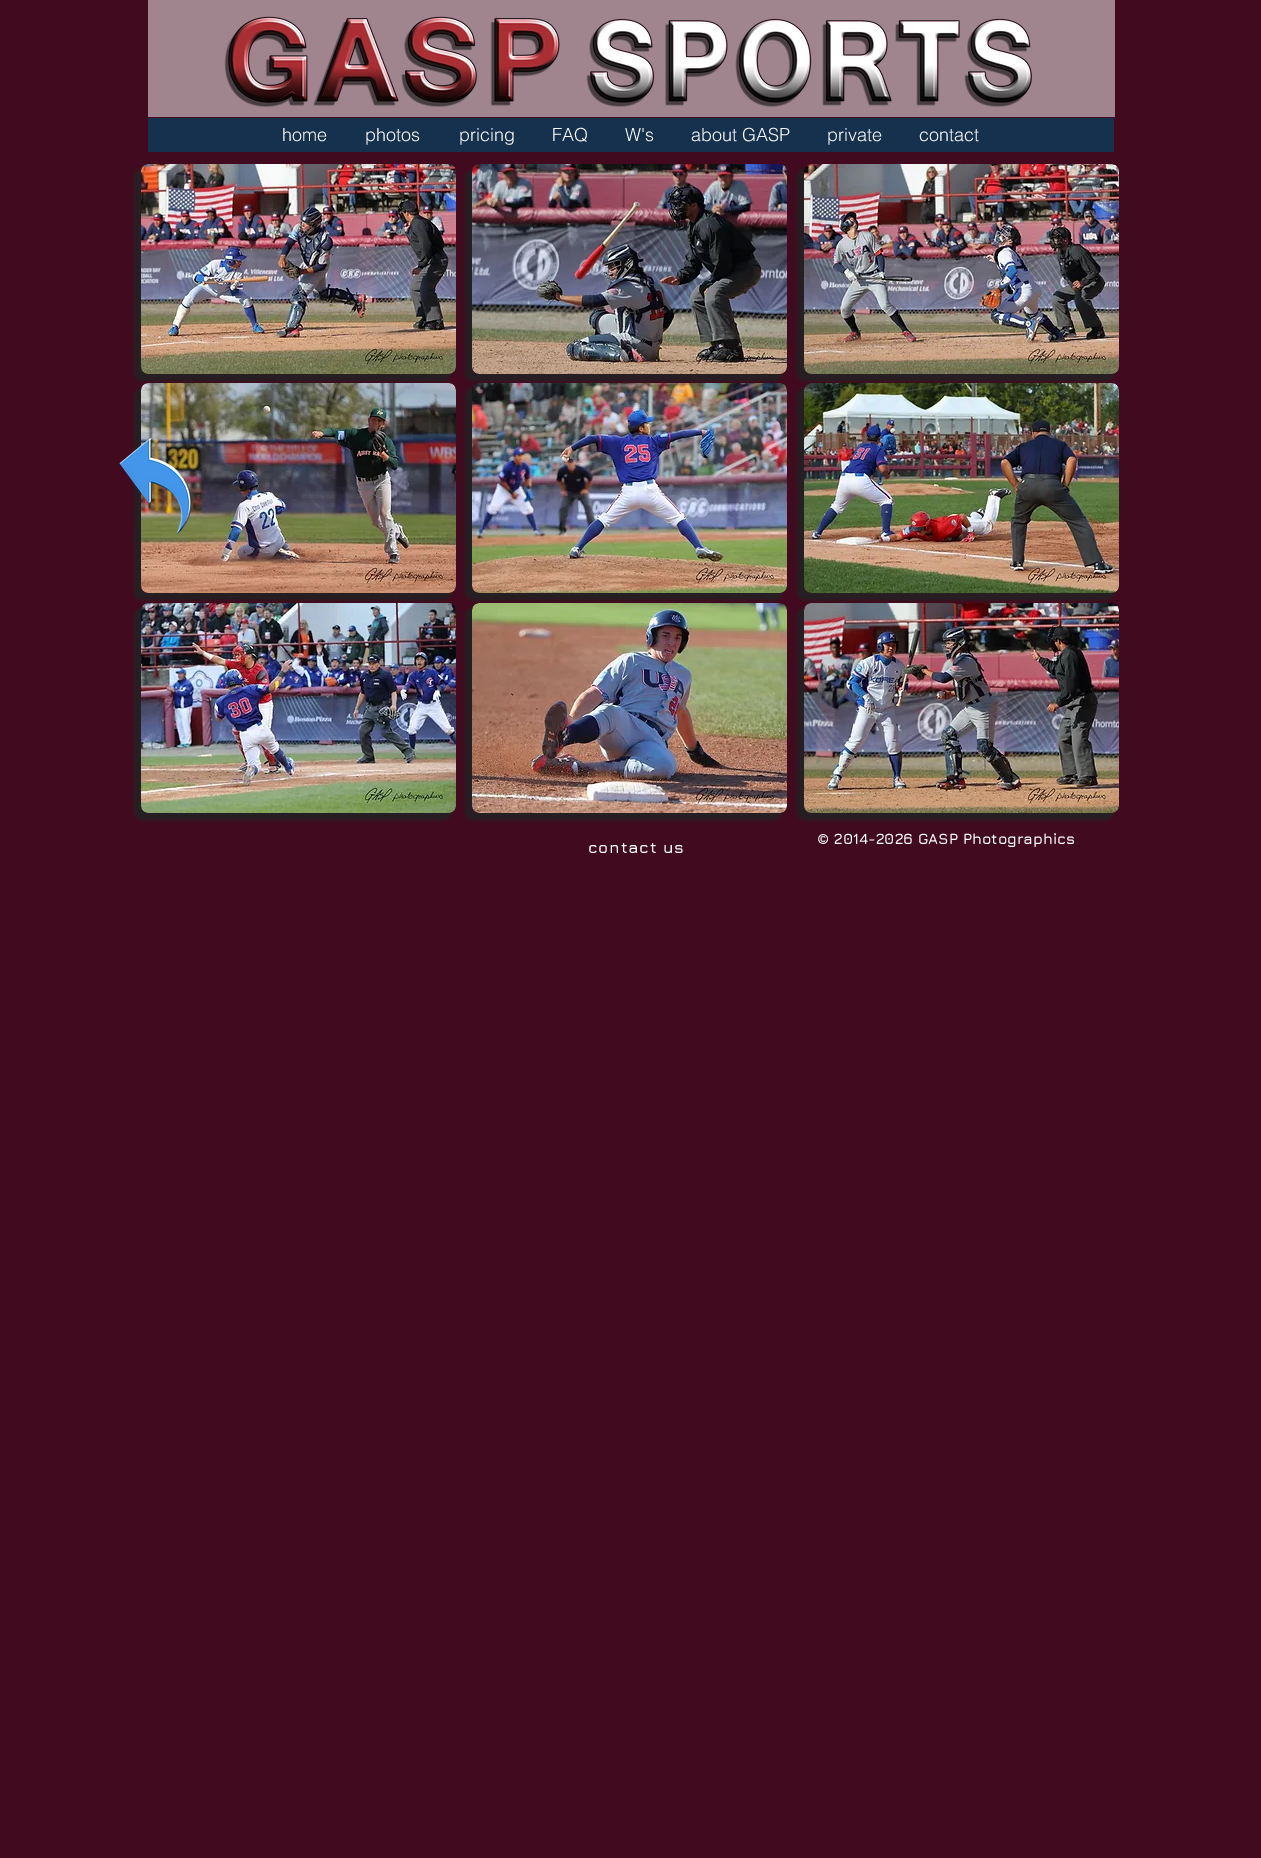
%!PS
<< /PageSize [1261 1858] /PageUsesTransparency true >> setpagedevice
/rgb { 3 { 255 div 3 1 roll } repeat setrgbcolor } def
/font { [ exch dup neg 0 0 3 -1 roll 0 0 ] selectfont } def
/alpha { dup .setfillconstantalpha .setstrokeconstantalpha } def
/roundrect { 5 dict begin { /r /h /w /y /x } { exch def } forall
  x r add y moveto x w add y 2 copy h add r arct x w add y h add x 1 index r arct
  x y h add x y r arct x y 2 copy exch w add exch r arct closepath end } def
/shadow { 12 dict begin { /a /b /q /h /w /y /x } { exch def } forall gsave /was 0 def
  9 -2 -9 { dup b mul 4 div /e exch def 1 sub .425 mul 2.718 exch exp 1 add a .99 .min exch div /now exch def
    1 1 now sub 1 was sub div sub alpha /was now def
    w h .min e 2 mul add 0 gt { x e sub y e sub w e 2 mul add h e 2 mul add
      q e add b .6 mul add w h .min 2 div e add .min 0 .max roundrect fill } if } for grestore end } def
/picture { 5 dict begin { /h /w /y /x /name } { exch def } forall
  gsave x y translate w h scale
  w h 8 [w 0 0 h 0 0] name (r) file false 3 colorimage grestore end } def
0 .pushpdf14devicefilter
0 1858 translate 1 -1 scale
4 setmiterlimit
65 10 30 rgb
0 0 1261 1858 rectfill
160 133 143 rgb
148 0 967 117 rectfill
(img/1.rgb) 224 16 808 91 picture
22 49 77 rgb
148 118 966 34 rectfill
32 34 35 rgb
134 169 317 212 8 1.5 0.85 shadow
(img/2.rgb) 141 164 315 210 picture
465 169 317 212 8 1.5 0.85 shadow
(img/3.rgb) 472 164 315 210 picture
797 169 317 212 8 1.5 0.85 shadow
(img/4.rgb) 804 164 315 210 picture
134 388 317 212 8 1.5 0.85 shadow
(img/5.rgb) 141 383 315 210 picture
465 388 317 212 8 1.5 0.85 shadow
(img/6.rgb) 472 383 315 210 picture
797 388 317 212 8 1.5 0.85 shadow
(img/7.rgb) 804 383 315 210 picture
(img/8.rgb) 119 438 73 97 picture
134 608 317 212 8 1.5 0.85 shadow
(img/9.rgb) 141 603 315 210 picture
465 608 317 212 8 1.5 0.85 shadow
(img/10.rgb) 472 603 315 210 picture
797 608 317 212 8 1.5 0.85 shadow
(img/11.rgb) 804 603 315 210 picture
/helvetica-Light 18 font
255 255 255 rgb
[
  [(home) 282 141]
  [(photos) 365 141]
  [(pricing) 459 141]
  [(FAQ) 552 141]
  [(W's) 625 141]
  [(about GASP) 691 141]
  [(private) 827 141]
  [(contact) 919 141]
] { aload pop moveto show } forall
/Jura-Bold 15 font
817 844 moveto (© 2014-2026 GASP Photographics) show
/Jura-Bold 16 font
588 853 moveto 0.75 0 (contact us) ashow
.poppdf14devicefilter showpage
